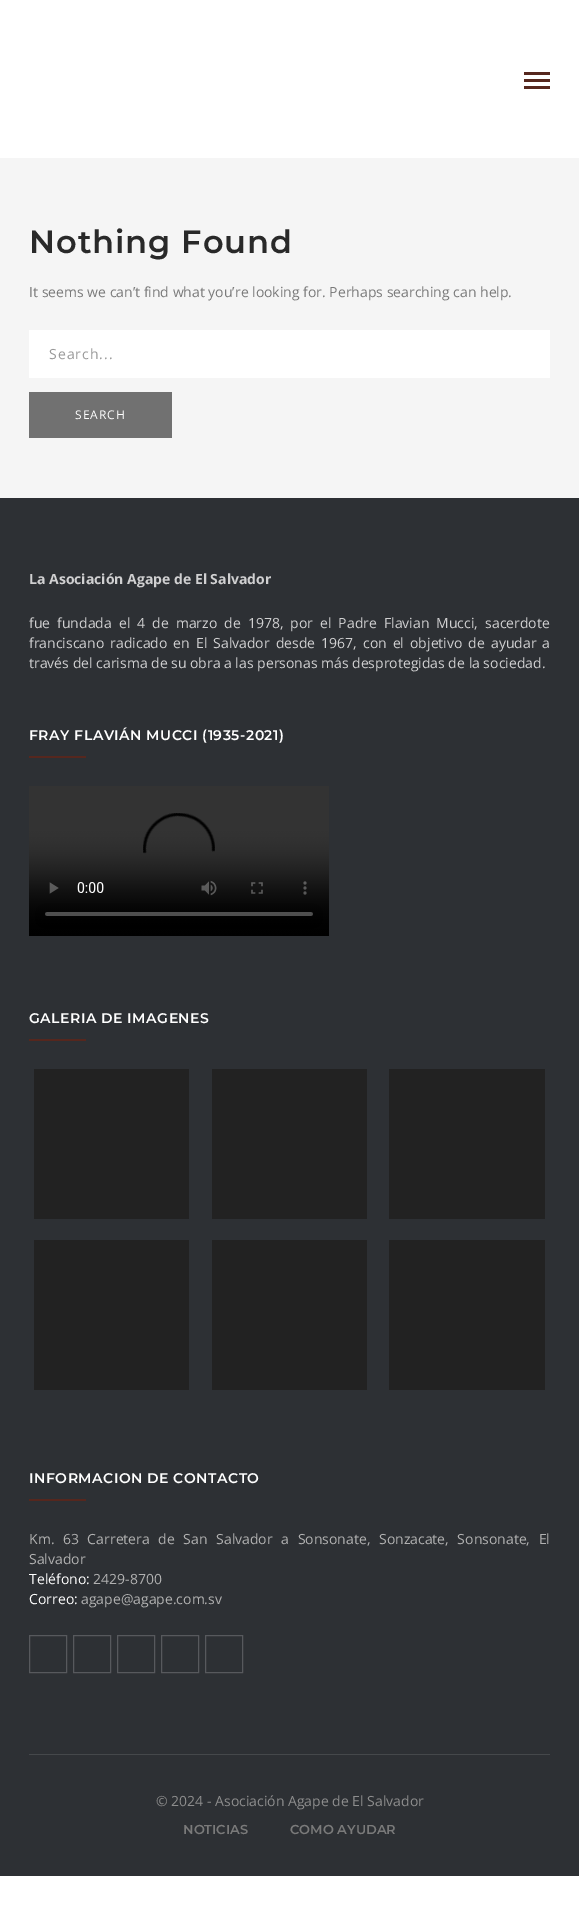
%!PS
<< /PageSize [579 1911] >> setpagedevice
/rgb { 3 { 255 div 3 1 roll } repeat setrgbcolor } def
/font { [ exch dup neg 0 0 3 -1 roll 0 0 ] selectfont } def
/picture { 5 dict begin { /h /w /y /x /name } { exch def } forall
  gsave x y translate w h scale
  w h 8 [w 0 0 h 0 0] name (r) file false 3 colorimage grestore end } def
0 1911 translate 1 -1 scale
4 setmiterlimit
255 255 255 rgb
0 0 579 1911 rectfill
[
  [524 72 26 3 86 39 30]
  [524 79 26 3 86 39 30]
  [524 86 26 3 86 39 30]
  [0 158 579 340 245 245 245]
  [29 330 521 48 255 255 255]
  [29 392 143 46 113 113 113]
  [0 498 579 1378 45 48 52]
  [29 756 57 2 86 39 30]
] { aload pop rgb rectfill } forall
(img/1.rgb) 29 786 300 150 picture
[
  [29 1039 57 2 86 39 30]
  [34 1069 155 150 34 34 34]
  [212 1069 155 150 34 34 34]
  [389 1069 156 150 34 34 34]
  [34 1240 155 150 34 34 34]
  [212 1240 155 150 34 34 34]
  [389 1240 156 150 34 34 34]
  [29 1499 57 2 86 39 30]
] { aload pop rgb rectfill } forall
87 89 93 rgb
29.5 1635.5 37 37 rectstroke
73.5 1635.5 37 37 rectstroke
117.5 1635.5 37 37 rectstroke
161.5 1635.5 37 37 rectstroke
205.5 1635.5 37 37 rectstroke
69 72 75 rgb
29 1754 521 1 rectfill
/Montserrat-SemiBold 32 font
41 41 41 rgb
29 253 moveto 1 0 (Nothing Found) ashow
/OpenSans-Regular 14 font
122 122 122 rgb
29 297 moveto (It seems we can’t find what you’re looking for. Perhaps searching can help.) show
153 153 153 rgb
49 359 moveto 1 0 (Search...) ashow
/OpenSans-Regular 12 font
255 255 255 rgb
75 419 moveto 1 0 (SEARCH) ashow
/OpenSans-Bold 14 font
208 208 209 rgb
29 584 moveto (La Asociación Agape de El Salvador) show
/OpenSans-Regular 14 font
29 628 moveto 3.4 0 32 (fue fundada el 4 de marzo de 1978, por el Padre Flavian Mucci, sacerdote) widthshow
29 648 moveto 2.4 0 32 (franciscano radicado en El Salvador desde 1967, con el objetivo de ayudar a) widthshow
29 668 moveto (través del carisma de su obra a las personas más desprotegidas de la sociedad.) show
/Montserrat-SemiBold 14 font
255 255 255 rgb
29 740 moveto 0.5 0 (FRAY FLAVIÁN MUCCI \(1935-2021\)) ashow
29 1023 moveto 0.5 0 (GALERIA DE IMAGENES) ashow
29 1483 moveto 0.5 0 (INFORMACION DE CONTACTO) ashow
/OpenSans-Regular 14 font
177 177 177 rgb
29 1544 moveto 5 0 32 (Km. 63 Carretera de San Salvador a Sonsonate, Sonzacate, Sonsonate, El) widthshow
29 1564 moveto (Salvador) show
255 255 255 rgb
29 1584 moveto (Teléfono:) show
177 177 177 rgb
93 1584 moveto (2429-8700) show
255 255 255 rgb
29 1604 moveto (Correo:) show
177 177 177 rgb
81 1604 moveto (agape@agape.com.sv) show
141 141 141 rgb
156 1806 moveto (© 2024 - Asociación Agape de El Salvador) show
/Montserrat-SemiBold 13 font
122 122 122 rgb
183 1834 moveto (NOTICIAS) show
290 1834 moveto (COMO AYUDAR) show
showpage
